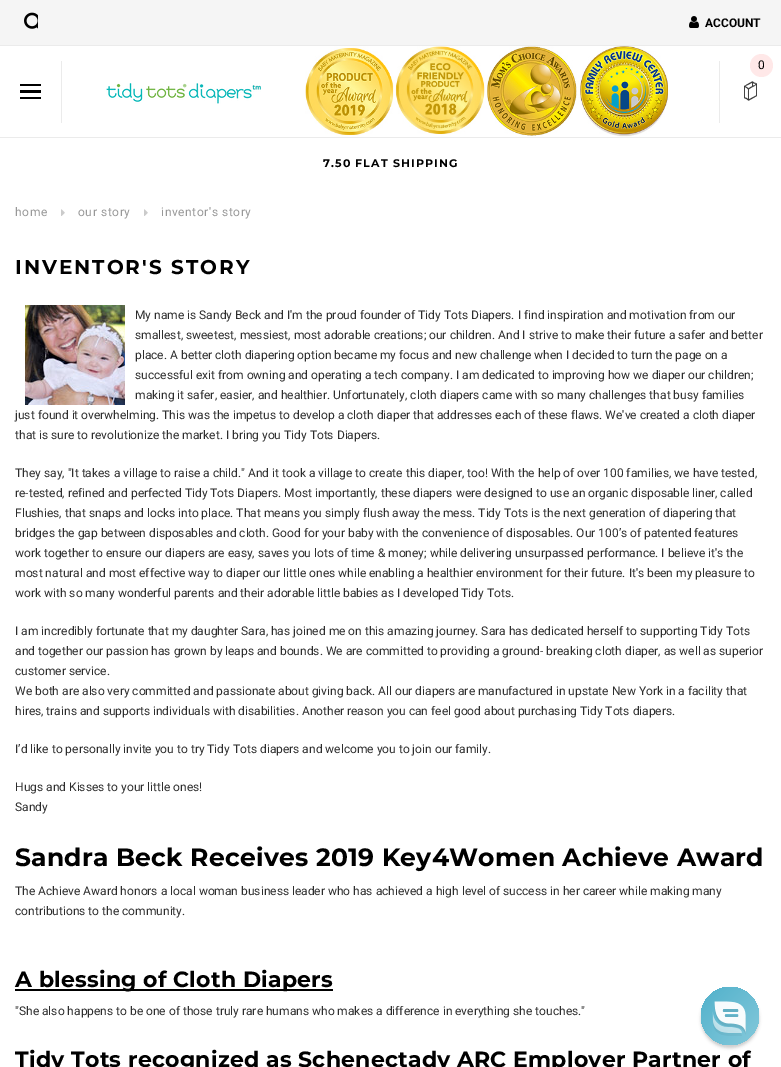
%!PS
<< /PageSize [781 1067] /PageUsesTransparency true >> setpagedevice
/rgb { 3 { 255 div 3 1 roll } repeat setrgbcolor } def
/font { [ exch dup neg 0 0 3 -1 roll 0 0 ] selectfont } def
/alpha { dup .setfillconstantalpha .setstrokeconstantalpha } def
/circle { newpath 0 360 arc closepath } def
/roundrect { 5 dict begin { /r /h /w /y /x } { exch def } forall
  x r add y moveto x w add y 2 copy h add r arct x w add y h add x 1 index r arct
  x y h add x y r arct x y 2 copy exch w add exch r arct closepath end } def
/shadow { 12 dict begin { /a /b /q /h /w /y /x } { exch def } forall gsave /was 0 def
  9 -2 -9 { dup b mul 4 div /e exch def 1 sub .425 mul 2.718 exch exp 1 add a .99 .min exch div /now exch def
    1 1 now sub 1 was sub div sub alpha /was now def
    w h .min e 2 mul add 0 gt { x e sub y e sub w e 2 mul add h e 2 mul add
      q e add b .6 mul add w h .min 2 div e add .min 0 .max roundrect fill } if } for grestore end } def
/picture { 5 dict begin { /h /w /y /x /name } { exch def } forall
  gsave x y translate w h scale
  w h 8 [w 0 0 h 0 0] name (r) file false 3 colorimage grestore end } def
0 .pushpdf14devicefilter
0 1067 translate 1 -1 scale
4 setmiterlimit
255 255 255 rgb
0 0 781 1067 rectfill
245 245 245 rgb
0 0 781 45 rectfill
(img/1.rgb) 24 12 14 17 picture
(img/2.rgb) 689 16 10 12 picture
[
  [0 45 781 1 235 235 235]
  [0 137 781 1 235 235 235]
  [61 61 1 62 235 235 235]
  [20 84 21 2 0 0 0]
  [20 97 21 2 0 0 0]
  [20 90 21 3 0 0 0]
] { aload pop rgb rectfill } forall
(img/3.rgb) 106 83 155 21 picture
(img/4.rgb) 305 46 363 91 picture
235 235 235 rgb
719 61 1 62 rectfill
255 232 232 rgb
761.5 65.5 11.5 circle fill
(img/5.rgb) 744 81 13 20 picture
(img/6.rgb) 61 209 4 7 picture
(img/6.rgb) 144 209 4 7 picture
(img/7.rgb) 25 305 100 100 picture
0 0 0 rgb
15 989 318 2 rectfill
13 13 13 rgb
701 990 58 58 29 1.5 0.2 shadow
gsave 730 1016 29 circle clip newpath
<< /ShadingType 2 /ColorSpace /DeviceRGB /Coords [701 987 759 1045] /Extend [true true] /Function << /FunctionType 2 /Domain [0 1] /C0 [0.318 0.694 0.796] /C1 [0.522 0.788 0.859] /N 1 >> >> shfill grestore
(img/8.rgb) 712 1001 34 35 picture
/Roboto-Bold 12 font
0 0 0 rgb
705 27 moveto (ACCOUNT) show
/Roboto-Regular 12 font
758 69 moveto (0) show
/Montserrat-Bold 11 font
323 167 moveto 1.1 0 (7.50 FLAT SHIPPING) ashow
/Roboto-Regular 12 font
152 152 152 rgb
15 216 moveto 0.6 0 (home) ashow
78 216 moveto 0.6 0 (our story) ashow
161 216 moveto 0.6 0 (inventor's story) ashow
/Montserrat-Bold 20 font
0 0 0 rgb
15 274 moveto 2 0 (INVENTOR'S STORY) ashow
/Roboto-Regular 12 font
45 45 45 rgb
[
  [(My name is Sandy Beck and I'm the proud founder of Tidy Tots Diapers. I find inspiration and motivation from our) 135 319]
  [(smallest, sweetest, messiest, most adorable creations; our children. And I strive to make their future a safer and better) 135 339]
  [(place. A better cloth diapering option became my focus and new challenge when I decided to turn the page on a) 135 359]
  [(successful exit from owning and operating a tech company. I am dedicated to improving how we diaper our children;) 135 379]
  [(making it safer, easier, and healthier. Unfortunately, cloth diapers came with so many challenges that busy families) 135 399]
  [(just found it overwhelming. This was the impetus to develop a cloth diaper that addresses each of these flaws. We've created a cloth diaper) 15 419]
  [(that is sure to revolutionize the market. I bring you Tidy Tots Diapers.) 15 439]
  [(They say, "It takes a village to raise a child." And it took a village to create this diaper, too! With the help of over 100 families, we have tested,) 15 477]
  [(re-tested, refined and perfected Tidy Tots Diapers. Most importantly, these diapers were designed to use an organic disposable liner, called) 15 497]
  [(Flushies, that snaps and locks into place. That means you simply flush away the mess. Tidy Tots is the next generation of diapering that) 15 517]
  [(bridges the gap between disposables and cloth. Good for your baby with the convenience of disposables. Our 100’s of patented features) 15 537]
  [(work together to ensure our diapers are easy, saves you lots of time & money; while delivering unsurpassed performance. I believe it's the) 15 557]
  [(most natural and most effective way to diaper our little ones while enabling a healthier environment for their future. It's been my pleasure to) 15 577]
  [(work with so many wonderful parents and their adorable little babies as I developed Tidy Tots.) 15 597]
  [(I am incredibly fortunate that my daughter Sara, has joined me on this amazing journey. Sara has dedicated herself to supporting Tidy Tots) 15 635]
  [(and together our passion has grown by leaps and bounds. We are committed to providing a ground- breaking cloth diaper, as well as superior) 15 655]
  [(customer service.) 15 675]
  [(We both are also very committed and passionate about giving back. All our diapers are manufactured in upstate New York in a facility that) 15 695]
  [(hires, trains and supports individuals with disabilities. Another reason you can feel good about purchasing Tidy Tots diapers.) 15 715]
  [(I’d like to personally invite you to try Tidy Tots diapers and welcome you to join our family.) 15 753]
  [(Hugs and Kisses to your little ones!) 15 791]
  [(Sandy) 15 811]
] { aload pop moveto show } forall
/Montserrat-Bold 25 font
0 0 0 rgb
15 866 moveto 0.25 0 (Sandra Beck Receives 2019 Key4Women Achieve Award) ashow
/Roboto-Regular 12 font
45 45 45 rgb
15 895 moveto (The Achieve Award honors a local woman business leader who has achieved a high level of success in her career while making many) show
15 915 moveto (contributions to the community.) show
/Montserrat-Bold 22 font
0 0 0 rgb
15 987 moveto 0.25 0 (A blessing of Cloth Diapers) ashow
/Roboto-Regular 12 font
45 45 45 rgb
15 1015 moveto ("She also happens to be one of those truly rare humans who makes a difference in everything she touches.") show
/Montserrat-Bold 22 font
0 0 0 rgb
15 1067 moveto 0.25 0 (Tidy Tots recognized as Schenectady ARC Employer Partner of) ashow
.poppdf14devicefilter showpage
